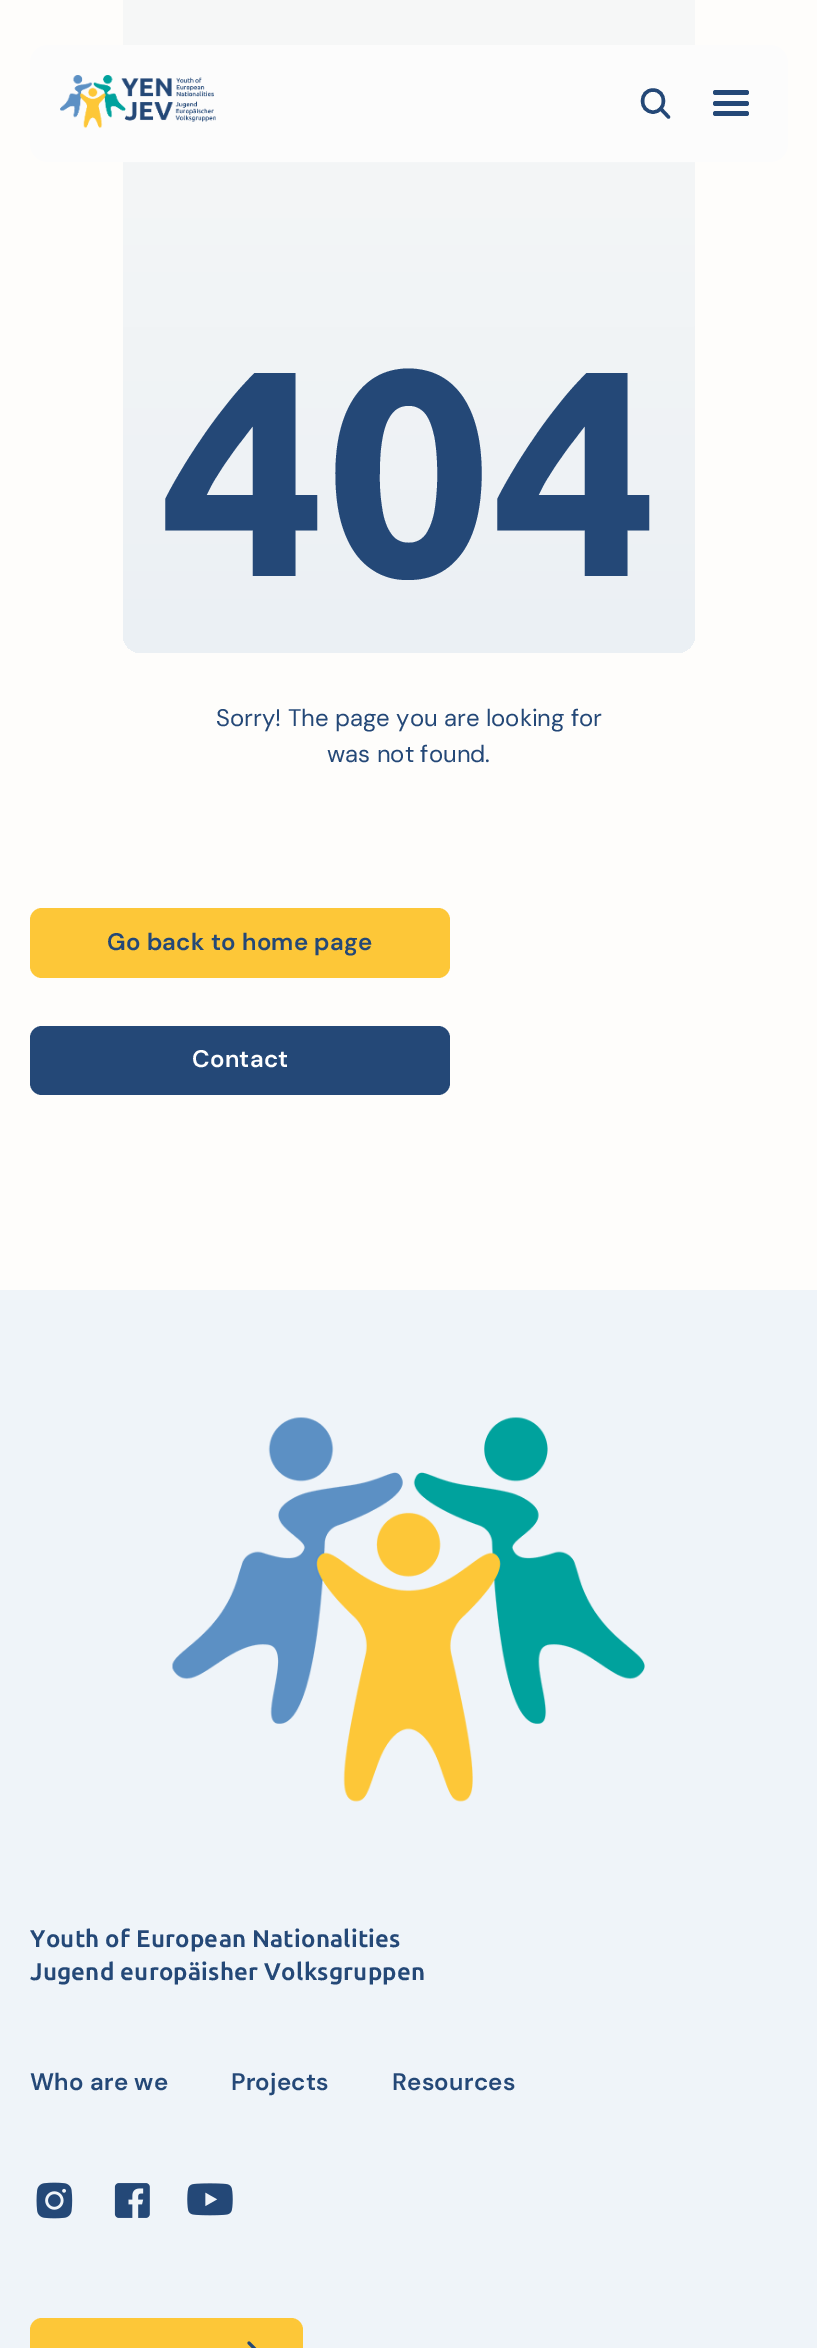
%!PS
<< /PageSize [817 2348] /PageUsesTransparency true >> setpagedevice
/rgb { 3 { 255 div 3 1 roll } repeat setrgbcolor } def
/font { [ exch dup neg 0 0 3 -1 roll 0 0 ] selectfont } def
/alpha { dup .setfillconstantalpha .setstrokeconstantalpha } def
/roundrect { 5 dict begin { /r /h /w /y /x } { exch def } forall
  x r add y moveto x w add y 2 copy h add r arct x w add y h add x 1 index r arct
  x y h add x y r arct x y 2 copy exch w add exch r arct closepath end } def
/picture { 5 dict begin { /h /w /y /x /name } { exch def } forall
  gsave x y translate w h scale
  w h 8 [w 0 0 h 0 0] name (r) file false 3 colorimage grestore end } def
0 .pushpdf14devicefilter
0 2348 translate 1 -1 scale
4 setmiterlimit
254 253 251 rgb
0 0 817 2348 rectfill
gsave 123 0 moveto 695 0 lineto 695 635 lineto 695 645 687 653 677 653 curveto 141 653 lineto 131 653 123 645 123 635 curveto closepath clip newpath
<< /ShadingType 2 /ColorSpace /DeviceRGB /Coords [409 -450 409 653] /Extend [true true] /Function << /FunctionType 2 /Domain [0 1] /C0 [1 0.992 0.984] /C1 [0.922 0.941 0.957] /N 1 >> >> shfill grestore
0.95 alpha
252 252 252 rgb
30 45 758 117 18 roundrect fill
1 alpha
(img/1.rgb) 60 75 156 54 picture
36 72 119 rgb
3.4 setlinewidth
1 setlinecap
1 setlinejoin
653 112 moveto 667 112 667 90 653 90 curveto 639 90 639 112 653 112 curveto closepath 668.5 117 moveto 660.5 108.5 lineto stroke
713 101 36 5 2.5 roundrect fill
713 90 36 5 2.5 roundrect fill
713 111 36 5 2.5 roundrect fill
253 199 56 rgb
30 908 420 70 12 roundrect fill
36 72 119 rgb
30 1026 420 69 12 roundrect fill
239 244 249 rgb
0 1290 817 1058 rectfill
(img/2.rgb) 172 1417 473 385 picture
(img/3.rgb) 36 2182 37 37 picture
(img/4.rgb) 114 2183 36 35 picture
(img/5.rgb) 187 2183 46 33 picture
253 199 56 rgb
30 2318 273 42 12 roundrect fill
36 72 119 rgb
3 setlinewidth
249 2343 moveto 257.5 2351.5 lineto 249 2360.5 lineto stroke
/UbuntuSans-ExtraBold 294 font
160 576 moveto (404) show
/DMSans-Regular 24 font
216 726 moveto (Sorry! The page you are looking for) show
327 762 moveto (was not found.) show
/DMSans-SemiBold 24 font
107 950 moveto 0.25 0 (Go back to home page) ashow
255 255 255 rgb
192 1067 moveto 0.25 0 (Contact) ashow
/UbuntuSans-Bold 24 font
36 72 119 rgb
30 1947 moveto 0.25 0 (Youth of European Nationalities) ashow
30 1980 moveto 0.25 0 (Jugend europäisher Volksgruppen) ashow
/DMSans-SemiBold 24 font
30 2090 moveto 0.25 0 (Who are we) ashow
231 2090 moveto 0.25 0 (Projects) ashow
392 2090 moveto 0.25 0 (Resources) ashow
.poppdf14devicefilter showpage
